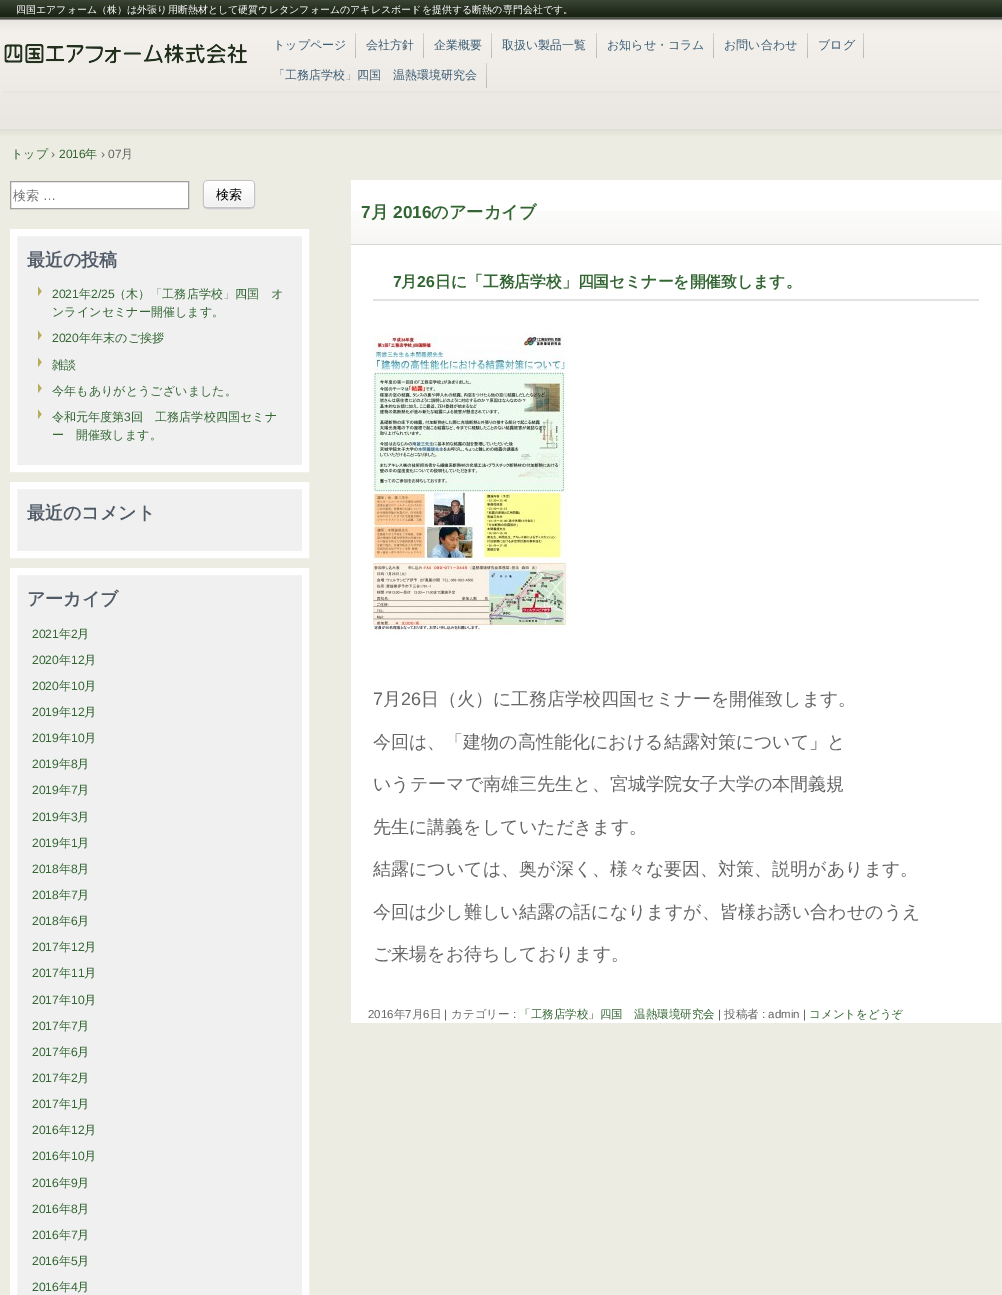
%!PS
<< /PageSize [1002 1295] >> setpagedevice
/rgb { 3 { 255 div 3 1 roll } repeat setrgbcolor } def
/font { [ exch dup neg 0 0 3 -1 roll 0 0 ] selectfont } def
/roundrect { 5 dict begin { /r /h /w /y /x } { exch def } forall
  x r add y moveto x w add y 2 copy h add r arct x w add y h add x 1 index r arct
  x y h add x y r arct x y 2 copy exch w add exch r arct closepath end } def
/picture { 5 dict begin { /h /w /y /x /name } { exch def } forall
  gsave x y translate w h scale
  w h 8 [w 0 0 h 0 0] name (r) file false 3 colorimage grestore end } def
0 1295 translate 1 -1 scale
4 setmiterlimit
236 236 226 rgb
0 0 1002 1295 rectfill
(img/1.rgb) 0 0 1002 136 picture
(img/2.rgb) 4 43 243 21 picture
(img/3.rgb) 355 33 1 25 picture
(img/3.rgb) 423 33 1 25 picture
(img/3.rgb) 491 33 1 25 picture
(img/3.rgb) 596 33 1 25 picture
(img/3.rgb) 713 33 1 25 picture
(img/3.rgb) 807 33 1 25 picture
(img/3.rgb) 863 33 1 25 picture
(img/3.rgb) 486 63 1 25 picture
232 229 223 rgb
2 91 998 2 rectfill
255 255 255 rgb
10.5 181.5 moveto 188.5 181.5 lineto 188.5 208.5 lineto 10.5 208.5 lineto closepath gsave fill grestore
159 159 159 rgb
stroke
239 239 239 rgb
202 180 54 30 5 roundrect fill
(img/4.rgb) 202 180 54 30 picture
240 240 240 rgb
13.5 232.5 moveto 305.5 232.5 lineto 305.5 468.5 lineto 13.5 468.5 lineto closepath gsave fill grestore
255 255 255 rgb
7 setlinewidth
stroke
(img/5.rgb) 38 286 4 10 picture
(img/5.rgb) 38 330 4 10 picture
(img/5.rgb) 38 357 4 10 picture
(img/5.rgb) 38 383 4 10 picture
(img/5.rgb) 38 409 4 10 picture
240 240 240 rgb
13.5 485.5 moveto 305.5 485.5 lineto 305.5 554.5 lineto 13.5 554.5 lineto closepath gsave fill grestore
255 255 255 rgb
stroke
240 240 240 rgb
13.5 571.5 moveto 305.5 571.5 lineto 305.5 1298.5 lineto 13.5 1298.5 lineto closepath gsave fill grestore
255 255 255 rgb
stroke
351 180 650 843 rectfill
(img/6.rgb) 351 211 650 33 picture
213 213 213 rgb
351 244 650 1 rectfill
226 226 226 rgb
373 299 606 2 rectfill
(img/7.rgb) 373 333 196 300 picture
/WenQuanYiZenHei-Medium 10 font
255 255 255 rgb
16 13 moveto (四国エアフォーム（株）は外張り用断熱材として硬質ウレタンフォームのアキレスボードを提供する断熱の専門会社です。) show
/WenQuanYiZenHei-Medium 12 font
58 92 116 rgb
[
  [(トップページ) 273 49]
  [(会社方針) 366 49]
  [(企業概要) 434 49]
  [(取扱い製品一覧) 502 49]
  [(お知らせ・コラム) 607 49]
  [(お問い合わせ) 724 49]
  [(ブログ) 818 49]
  [(「工務店学校」四国　温熱環境研究会) 273 79]
] { aload pop moveto show } forall
51 102 51 rgb
11 158 moveto (トップ) show
/LiberationSans-Regular 12 font
102 102 102 rgb
51 158 moveto (›) show
51 102 51 rgb
59 158 moveto (2016) show
/WenQuanYiZenHei-Medium 12 font
85 158 moveto (年) show
/LiberationSans-Regular 12 font
102 102 102 rgb
101 158 moveto (› 07) show
/WenQuanYiZenHei-Medium 12 font
121 158 moveto (月) show
/WenQuanYiZenHei-Medium 13 font
117 117 117 rgb
13 200 moveto (検索) show
/LiberationSans-Regular 13 font
43 200 moveto (…) show
/WenQuanYiZenHei-Medium 13 font
0 0 0 rgb
216 199 moveto (検索) show
/WenQuanYiZenHei-Bold 18 font
80 91 103 rgb
27 266 moveto (最近の投稿) show
/LiberationSans-Regular 12.1 font
51 102 51 rgb
52 298 moveto (2021) show
/WenQuanYiZenHei-Medium 12.1 font
79 298 moveto (年) show
/LiberationSans-Regular 12.1 font
91 298 moveto (2/25) show
/WenQuanYiZenHei-Medium 12.1 font
114 298 moveto (（木）「工務店学校」四国　オ) show
52 316 moveto (ンラインセミナー開催します。) show
/LiberationSans-Regular 12.1 font
52 342 moveto (2020) show
/WenQuanYiZenHei-Medium 12.1 font
[
  [(年年末のご挨拶) 79 342]
  [(雑談) 52 369]
  [(今年もありがとうございました。) 52 395]
  [(令和元年度第) 52 421]
] { aload pop moveto show } forall
/LiberationSans-Regular 12.1 font
124 421 moveto (3) show
/WenQuanYiZenHei-Medium 12.1 font
131 421 moveto (回　工務店学校四国セミナ) show
52 439 moveto (ー　開催致します。) show
/WenQuanYiZenHei-Bold 18 font
80 91 103 rgb
27 519 moveto (最近のコメント) show
27 605 moveto (アーカイブ) show
/LiberationSans-Regular 12.1 font
51 102 51 rgb
32 638 moveto (2021) show
/WenQuanYiZenHei-Medium 12.1 font
59 638 moveto (年) show
/LiberationSans-Regular 12.1 font
71 638 moveto (2) show
/WenQuanYiZenHei-Medium 12.1 font
77 638 moveto (月) show
/LiberationSans-Regular 12.1 font
32 664 moveto (2020) show
/WenQuanYiZenHei-Medium 12.1 font
59 664 moveto (年) show
/LiberationSans-Regular 12.1 font
71 664 moveto (12) show
/WenQuanYiZenHei-Medium 12.1 font
84 664 moveto (月) show
/LiberationSans-Regular 12.1 font
32 690 moveto (2020) show
/WenQuanYiZenHei-Medium 12.1 font
59 690 moveto (年) show
/LiberationSans-Regular 12.1 font
71 690 moveto (10) show
/WenQuanYiZenHei-Medium 12.1 font
84 690 moveto (月) show
/LiberationSans-Regular 12.1 font
32 716 moveto (2019) show
/WenQuanYiZenHei-Medium 12.1 font
59 716 moveto (年) show
/LiberationSans-Regular 12.1 font
71 716 moveto (12) show
/WenQuanYiZenHei-Medium 12.1 font
84 716 moveto (月) show
/LiberationSans-Regular 12.1 font
32 742 moveto (2019) show
/WenQuanYiZenHei-Medium 12.1 font
59 742 moveto (年) show
/LiberationSans-Regular 12.1 font
71 742 moveto (10) show
/WenQuanYiZenHei-Medium 12.1 font
84 742 moveto (月) show
/LiberationSans-Regular 12.1 font
32 768 moveto (2019) show
/WenQuanYiZenHei-Medium 12.1 font
59 768 moveto (年) show
/LiberationSans-Regular 12.1 font
71 768 moveto (8) show
/WenQuanYiZenHei-Medium 12.1 font
77 768 moveto (月) show
/LiberationSans-Regular 12.1 font
32 794 moveto (2019) show
/WenQuanYiZenHei-Medium 12.1 font
59 794 moveto (年) show
/LiberationSans-Regular 12.1 font
71 794 moveto (7) show
/WenQuanYiZenHei-Medium 12.1 font
77 794 moveto (月) show
/LiberationSans-Regular 12.1 font
32 821 moveto (2019) show
/WenQuanYiZenHei-Medium 12.1 font
59 821 moveto (年) show
/LiberationSans-Regular 12.1 font
71 821 moveto (3) show
/WenQuanYiZenHei-Medium 12.1 font
77 821 moveto (月) show
/LiberationSans-Regular 12.1 font
32 847 moveto (2019) show
/WenQuanYiZenHei-Medium 12.1 font
59 847 moveto (年) show
/LiberationSans-Regular 12.1 font
71 847 moveto (1) show
/WenQuanYiZenHei-Medium 12.1 font
77 847 moveto (月) show
/LiberationSans-Regular 12.1 font
32 873 moveto (2018) show
/WenQuanYiZenHei-Medium 12.1 font
59 873 moveto (年) show
/LiberationSans-Regular 12.1 font
71 873 moveto (8) show
/WenQuanYiZenHei-Medium 12.1 font
77 873 moveto (月) show
/LiberationSans-Regular 12.1 font
32 899 moveto (2018) show
/WenQuanYiZenHei-Medium 12.1 font
59 899 moveto (年) show
/LiberationSans-Regular 12.1 font
71 899 moveto (7) show
/WenQuanYiZenHei-Medium 12.1 font
77 899 moveto (月) show
/LiberationSans-Regular 12.1 font
32 925 moveto (2018) show
/WenQuanYiZenHei-Medium 12.1 font
59 925 moveto (年) show
/LiberationSans-Regular 12.1 font
71 925 moveto (6) show
/WenQuanYiZenHei-Medium 12.1 font
77 925 moveto (月) show
/LiberationSans-Regular 12.1 font
32 951 moveto (2017) show
/WenQuanYiZenHei-Medium 12.1 font
59 951 moveto (年) show
/LiberationSans-Regular 12.1 font
71 951 moveto (12) show
/WenQuanYiZenHei-Medium 12.1 font
84 951 moveto (月) show
/LiberationSans-Regular 12.1 font
32 977 moveto (2017) show
/WenQuanYiZenHei-Medium 12.1 font
59 977 moveto (年) show
/LiberationSans-Regular 12.1 font
71 977 moveto (11) show
/WenQuanYiZenHei-Medium 12.1 font
84 977 moveto (月) show
/LiberationSans-Regular 12.1 font
32 1004 moveto (2017) show
/WenQuanYiZenHei-Medium 12.1 font
59 1004 moveto (年) show
/LiberationSans-Regular 12.1 font
71 1004 moveto (10) show
/WenQuanYiZenHei-Medium 12.1 font
84 1004 moveto (月) show
/LiberationSans-Regular 12.1 font
32 1030 moveto (2017) show
/WenQuanYiZenHei-Medium 12.1 font
59 1030 moveto (年) show
/LiberationSans-Regular 12.1 font
71 1030 moveto (7) show
/WenQuanYiZenHei-Medium 12.1 font
77 1030 moveto (月) show
/LiberationSans-Regular 12.1 font
32 1056 moveto (2017) show
/WenQuanYiZenHei-Medium 12.1 font
59 1056 moveto (年) show
/LiberationSans-Regular 12.1 font
71 1056 moveto (6) show
/WenQuanYiZenHei-Medium 12.1 font
77 1056 moveto (月) show
/LiberationSans-Regular 12.1 font
32 1082 moveto (2017) show
/WenQuanYiZenHei-Medium 12.1 font
59 1082 moveto (年) show
/LiberationSans-Regular 12.1 font
71 1082 moveto (2) show
/WenQuanYiZenHei-Medium 12.1 font
77 1082 moveto (月) show
/LiberationSans-Regular 12.1 font
32 1108 moveto (2017) show
/WenQuanYiZenHei-Medium 12.1 font
59 1108 moveto (年) show
/LiberationSans-Regular 12.1 font
71 1108 moveto (1) show
/WenQuanYiZenHei-Medium 12.1 font
77 1108 moveto (月) show
/LiberationSans-Regular 12.1 font
32 1134 moveto (2016) show
/WenQuanYiZenHei-Medium 12.1 font
59 1134 moveto (年) show
/LiberationSans-Regular 12.1 font
71 1134 moveto (12) show
/WenQuanYiZenHei-Medium 12.1 font
84 1134 moveto (月) show
/LiberationSans-Regular 12.1 font
32 1160 moveto (2016) show
/WenQuanYiZenHei-Medium 12.1 font
59 1160 moveto (年) show
/LiberationSans-Regular 12.1 font
71 1160 moveto (10) show
/WenQuanYiZenHei-Medium 12.1 font
84 1160 moveto (月) show
/LiberationSans-Regular 12.1 font
32 1187 moveto (2016) show
/WenQuanYiZenHei-Medium 12.1 font
59 1187 moveto (年) show
/LiberationSans-Regular 12.1 font
71 1187 moveto (9) show
/WenQuanYiZenHei-Medium 12.1 font
77 1187 moveto (月) show
/LiberationSans-Regular 12.1 font
32 1213 moveto (2016) show
/WenQuanYiZenHei-Medium 12.1 font
59 1213 moveto (年) show
/LiberationSans-Regular 12.1 font
71 1213 moveto (8) show
/WenQuanYiZenHei-Medium 12.1 font
77 1213 moveto (月) show
/LiberationSans-Regular 12.1 font
32 1239 moveto (2016) show
/WenQuanYiZenHei-Medium 12.1 font
59 1239 moveto (年) show
/LiberationSans-Regular 12.1 font
71 1239 moveto (7) show
/WenQuanYiZenHei-Medium 12.1 font
77 1239 moveto (月) show
/LiberationSans-Regular 12.1 font
32 1265 moveto (2016) show
/WenQuanYiZenHei-Medium 12.1 font
59 1265 moveto (年) show
/LiberationSans-Regular 12.1 font
71 1265 moveto (5) show
/WenQuanYiZenHei-Medium 12.1 font
77 1265 moveto (月) show
/LiberationSans-Regular 12.1 font
32 1291 moveto (2016) show
/WenQuanYiZenHei-Medium 12.1 font
59 1291 moveto (年) show
/LiberationSans-Regular 12.1 font
71 1291 moveto (4) show
/WenQuanYiZenHei-Medium 12.1 font
77 1291 moveto (月) show
/LiberationSans-Bold 17.25 font
361 218 moveto (7) show
/WenQuanYiZenHei-Bold 17.25 font
371 218 moveto (月) show
/LiberationSans-Bold 17.25 font
393 218 moveto (2016) show
/WenQuanYiZenHei-Bold 17.25 font
431 218 moveto (のアーカイブ) show
/LiberationSans-Bold 15.8 font
393 287 moveto (7) show
/WenQuanYiZenHei-Bold 15.8 font
401 287 moveto (月) show
/LiberationSans-Bold 15.8 font
417 287 moveto (26) show
/WenQuanYiZenHei-Bold 15.8 font
435 287 moveto (日に「工務店学校」四国セミナーを開催致します。) show
/LiberationSans-Regular 18 font
102 102 102 rgb
373 705 moveto (7) show
/WenQuanYiZenHei-Medium 18 font
383 705 moveto (月) show
/LiberationSans-Regular 18 font
401 705 moveto (26) show
/WenQuanYiZenHei-Medium 18 font
[
  [(日（火）に工務店学校四国セミナーを開催致します。) 421 705]
  [(今回は、「建物の高性能化における結露対策について」と) 373 748]
  [(いうテーマで南雄三先生と、宮城学院女子大学の本間義規) 373 790]
  [(先生に講義をしていただきます。) 373 833]
  [(結露については、奥が深く、様々な要因、対策、説明があります。) 373 875]
  [(今回は少し難しい結露の話になりますが、皆様お誘い合わせのうえ) 373 918]
  [(ご来場をお待ちしております。) 373 960]
] { aload pop moveto show } forall
/LiberationSans-Regular 11.5 font
368 1018 moveto (2016) show
/WenQuanYiZenHei-Medium 11.5 font
394 1018 moveto (年) show
/LiberationSans-Regular 11.5 font
405 1018 moveto (7) show
/WenQuanYiZenHei-Medium 11.5 font
412 1018 moveto (月) show
/LiberationSans-Regular 11.5 font
423 1018 moveto (6) show
/WenQuanYiZenHei-Medium 11.5 font
430 1018 moveto (日) show
/LiberationSans-Regular 11.5 font
444 1018 moveto (|) show
/WenQuanYiZenHei-Medium 11.5 font
451 1018 moveto (カテゴリー) show
/LiberationSans-Regular 11.5 font
513 1018 moveto (:) show
/WenQuanYiZenHei-Medium 11.5 font
51 102 51 rgb
519 1018 moveto (「工務店学校」四国　温熱環境研究会) show
/LiberationSans-Regular 11.5 font
102 102 102 rgb
718 1018 moveto (|) show
/WenQuanYiZenHei-Medium 11.5 font
724 1018 moveto (投稿者) show
/LiberationSans-Regular 11.5 font
762 1018 moveto (: admin |) show
/WenQuanYiZenHei-Medium 11.5 font
51 102 51 rgb
809 1018 moveto (コメントをどうぞ) show
showpage
